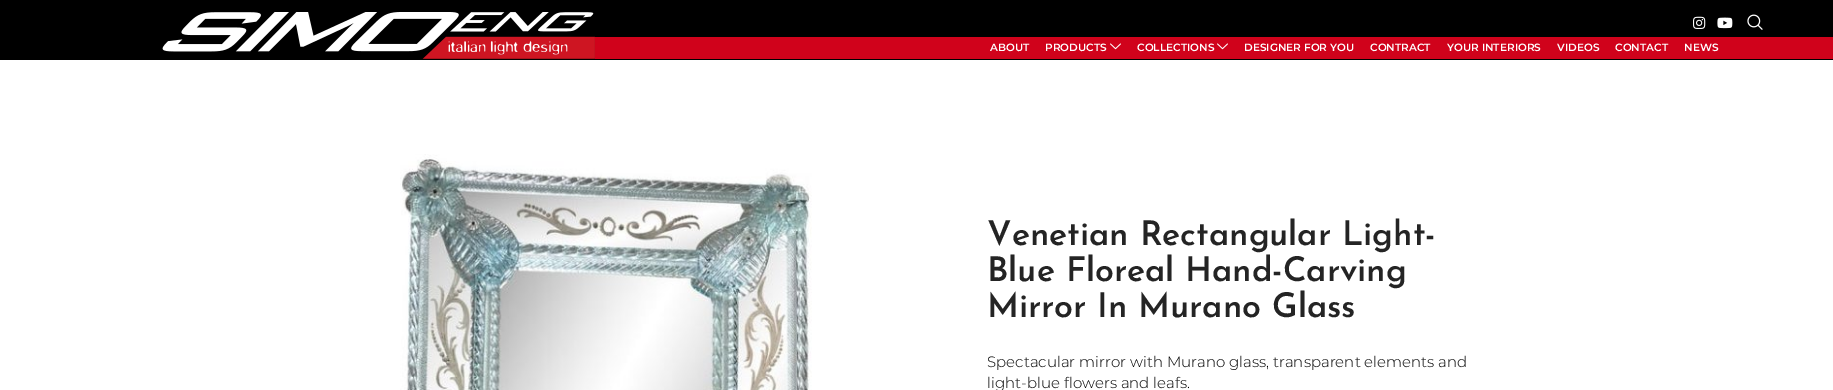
%!PS
<< /PageSize [1833 390] >> setpagedevice
/rgb { 3 { 255 div 3 1 roll } repeat setrgbcolor } def
/font { [ exch dup neg 0 0 3 -1 roll 0 0 ] selectfont } def
/picture { 5 dict begin { /h /w /y /x /name } { exch def } forall
  gsave x y translate w h scale
  w h 8 [w 0 0 h 0 0] name (r) file false 3 colorimage grestore end } def
0 390 translate 1 -1 scale
4 setmiterlimit
255 255 255 rgb
0 0 1833 390 rectfill
0 0 0 rgb
0 0 1833 60 rectfill
(img/1.rgb) 162 12 433 47 picture
(img/2.rgb) 1693 16 13 13 picture
(img/3.rgb) 1717 17 16 12 picture
(img/4.rgb) 1747 14 16 16 picture
208 2 27 rgb
595 37 1238 22 rectfill
(img/5.rgb) 1110 43 11 7 picture
(img/5.rgb) 1217 43 11 7 picture
(img/6.rgb) 400 154 412 236 picture
/Montserrat-SemiBold 10.5 font
255 255 255 rgb
[
  [(ABOUT) 990 51]
  [(PRODUCTS) 1045 51]
  [(COLLECTIONS) 1137 51]
  [(DESIGNER FOR YOU) 1244 51]
  [(CONTRACT) 1370 51]
  [(YOUR INTERIORS) 1447 51]
  [(VIDEOS) 1557 51]
  [(CONTACT) 1615 51]
  [(NEWS) 1684 51]
] { aload pop moveto show } forall
/JosefinSans-SemiBold 34 font
36 36 36 rgb
[
  [(Venetian Rectangular Light-) 987 245]
  [(Blue Floreal Hand-Carving) 987 281]
  [(Mirror In Murano Glass) 987 317]
] { aload pop moveto show } forall
/Montserrat-Light 15 font
0 0 0 rgb
987 367 moveto (Spectacular mirror with Murano glass, transparent elements and) show
987 388 moveto (light-blue flowers and leafs.) show
showpage
